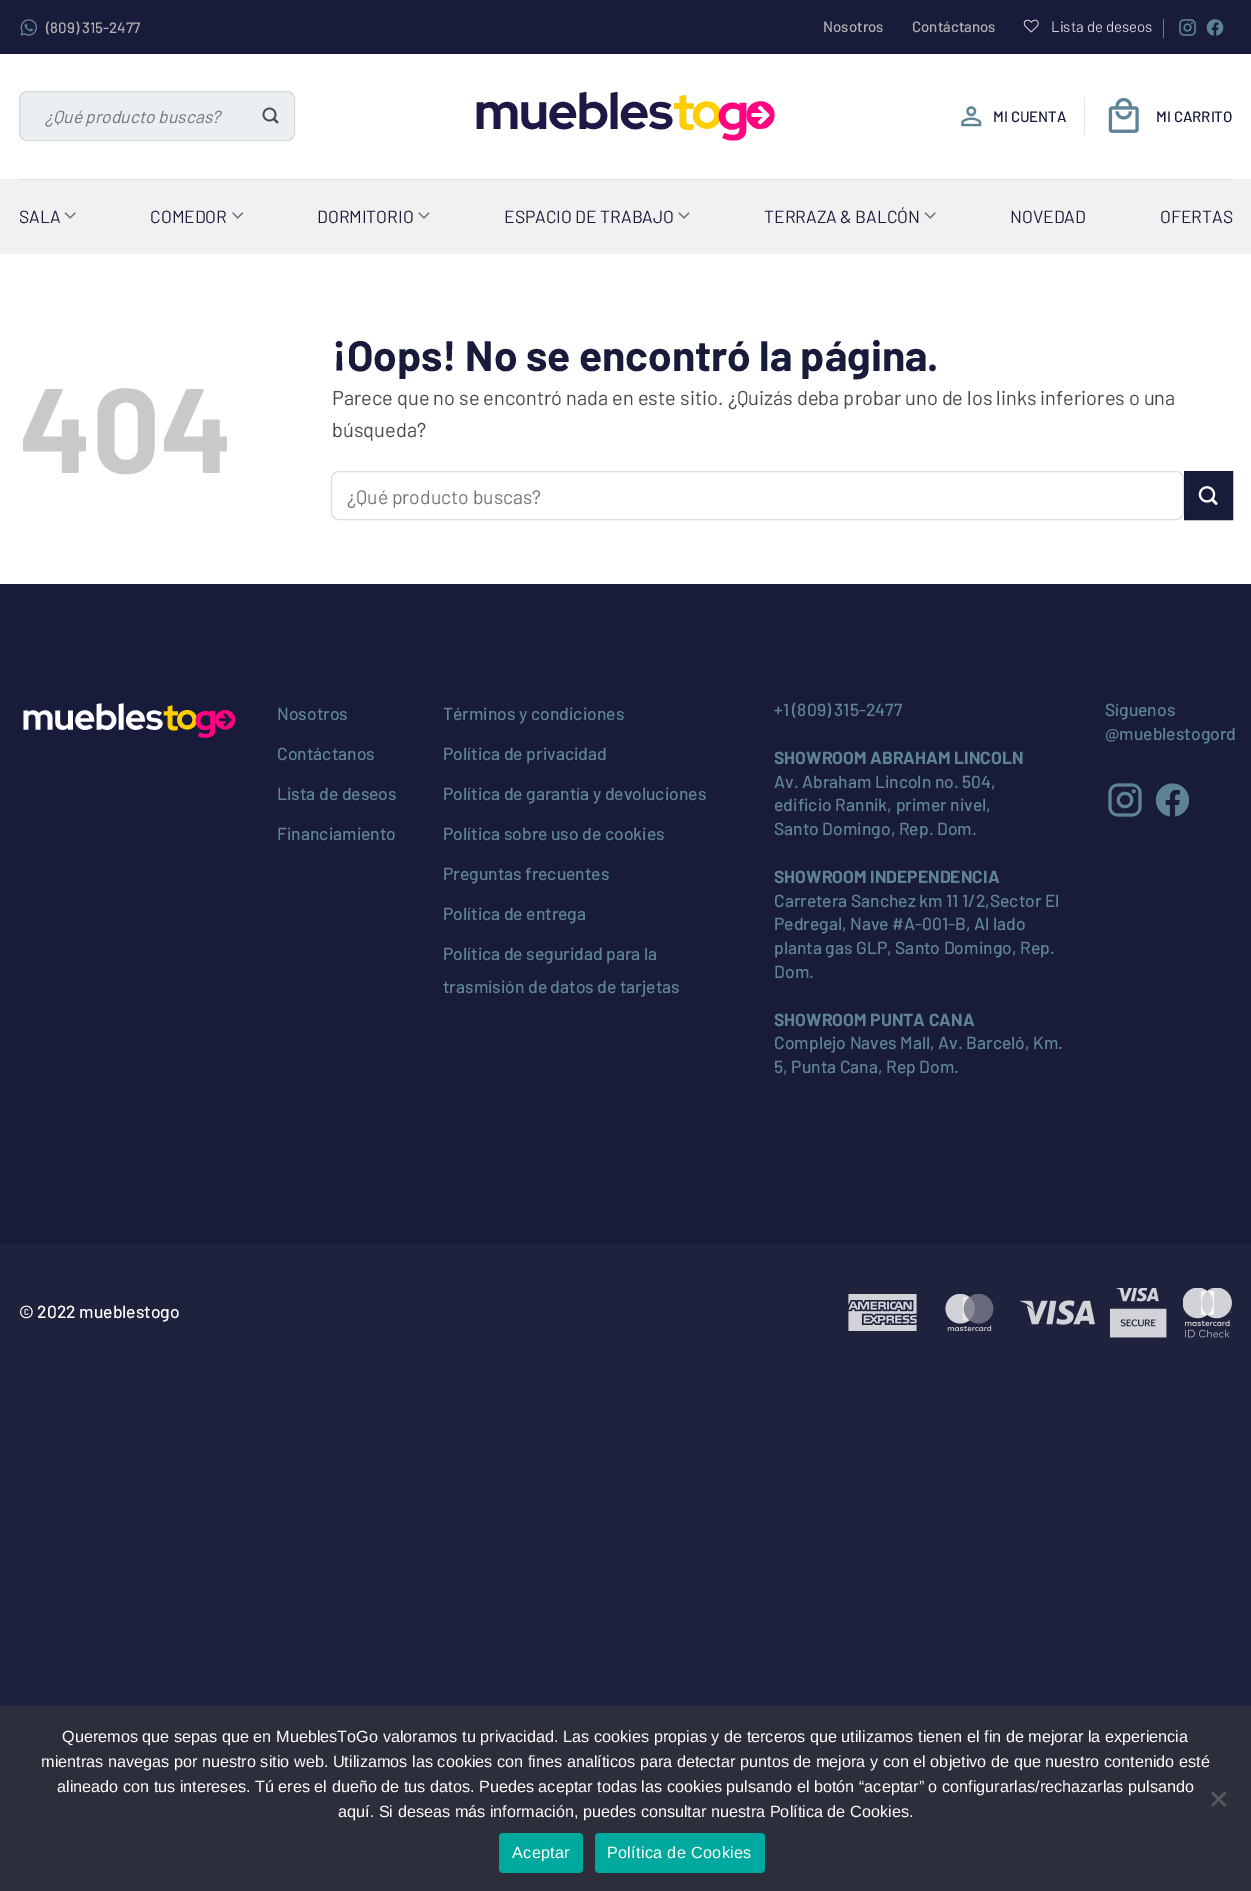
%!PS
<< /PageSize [1251 1891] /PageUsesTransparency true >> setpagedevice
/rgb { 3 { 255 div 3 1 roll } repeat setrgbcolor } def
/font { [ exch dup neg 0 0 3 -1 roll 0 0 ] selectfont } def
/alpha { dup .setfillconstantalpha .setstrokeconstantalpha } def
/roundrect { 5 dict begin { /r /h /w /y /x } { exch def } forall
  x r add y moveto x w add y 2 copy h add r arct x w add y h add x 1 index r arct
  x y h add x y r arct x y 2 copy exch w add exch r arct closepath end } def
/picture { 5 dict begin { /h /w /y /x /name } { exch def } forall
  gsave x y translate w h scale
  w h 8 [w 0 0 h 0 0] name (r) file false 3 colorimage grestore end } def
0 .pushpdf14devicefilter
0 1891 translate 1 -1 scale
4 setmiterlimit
31 34 60 rgb
0 0 1251 1891 rectfill
255 255 255 rgb
0 54 1251 530 rectfill
24 27 58 rgb
0 0 1251 54 rectfill
(img/1.rgb) 20 19 17 17 picture
(img/2.rgb) 1023 19 16 14 picture
94 131 150 rgb
1163 19 1 19 rectfill
(img/3.rgb) 1179 19 17 17 picture
(img/4.rgb) 1206 19 18 17 picture
234 239 242 rgb
19 91 276 50 8 roundrect fill
0.09 alpha
0 0 0 rgb
19.5 91.5 275 49 7.5 roundrect stroke
1 alpha
(img/5.rgb) 262 107 17 17 picture
(img/6.rgb) 476 91 299 50 picture
(img/7.rgb) 961 106 21 21 picture
230 230 230 rgb
1084 98 1 37 rectfill
(img/8.rgb) 1108 97 31 36 picture
241 241 241 rgb
0 179 1251 75 rectfill
224 224 224 rgb
19 179 1214 1 rectfill
(img/9.rgb) 64 212 12 7 picture
(img/10.rgb) 232 212 12 7 picture
(img/11.rgb) 418 212 12 7 picture
(img/11.rgb) 678 212 12 7 picture
(img/9.rgb) 924 212 12 7 picture
221 221 221 rgb
331.5 471.5 852 48 7.5 roundrect stroke
24 27 58 rgb
1184.5 471.5 moveto 1232.5 471.5 lineto 1232.5 519.5 lineto 1184.5 519.5 lineto closepath gsave fill grestore
23 26 55 rgb
stroke
(img/12.rgb) 1198 486 20 19 picture
24 27 58 rgb
0 585 1251 659 rectfill
23 26 55 rgb
0 584 1251 1 rectfill
(img/13.rgb) 23 703 213 35 picture
(img/14.rgb) 1108 783 34 34 picture
(img/15.rgb) 1155 783 35 34 picture
(img/16.rgb) 848 1294 69 37 picture
(img/17.rgb) 945 1294 49 37 picture
(img/18.rgb) 1020 1300 75 25 picture
(img/19.rgb) 1110 1288 57 50 picture
(img/20.rgb) 1183 1288 49 50 picture
45 46 59 rgb
0 1706 1251 185 rectfill
87 87 94 rgb
1224.5 1791.5 moveto 1226.5 1793.5 lineto 1213 1806.5 lineto 1211 1805 lineto closepath fill
1211 1793.5 moveto 1213 1791.5 lineto 1226.5 1805 lineto 1224.5 1806.5 lineto closepath fill
0 169 157 rgb
499 1833 84 40 4 roundrect fill
595 1833 170 40 4 roundrect fill
/Barlow-Medium 15 font
177 177 177 rgb
[
  [(\(809\) 315-2477) 46 33]
  [(Nosotros) 823 32]
  [(Contáctanos) 912 32]
] { aload pop moveto show } forall
/Barlow-Regular 15 font
209 209 216 rgb
1051 32 moveto (Lista de deseos) show
/Barlow-Italic 17.5 font
117 117 117 rgb
45 123 moveto (¿Qué producto buscas?) show
/Barlow-Medium 15 font
24 27 58 rgb
993 122 moveto (MI CUENTA) show
1156 122 moveto (MI CARRITO) show
/Barlow-Regular 17.5 font
[
  [(SALA) 19 223]
  [(COMEDOR) 150 223]
  [(DORMITORIO) 317 223]
  [(ESPACIO DE TRABAJO) 504 223]
  [(TERRAZA & BALCÓN) 764 223]
  [(NOVEDAD) 1010 223]
  [(OFERTAS) 1160 223]
] { aload pop moveto show } forall
/Barlow-Bold 120 font
201 201 201 rgb
19 473 moveto (404) show
/Barlow-Bold 42.5 font
24 27 58 rgb
332 371 moveto (¡Oops! No se encontró la página.) show
/Barlow-Regular 20 font
74 74 74 rgb
332 405 moveto (Parece que no se encontró nada en este sitio. ¿Quizás deba probar uno de los links inferiores o una) show
332 437 moveto (búsqueda?) show
/Barlow-Regular 19.4 font
117 117 117 rgb
347 504 moveto (¿Qué producto buscas?) show
/Barlow-Medium 17.5 font
94 131 150 rgb
[
  [(Nosotros) 277 720]
  [(Contáctanos) 277 760]
  [(Lista de deseos) 277 800]
  [(Financiamiento) 277 840]
  [(Términos y condiciones) 443 720]
  [(Política de privacidad) 443 760]
  [(Política de garantía y devoluciones) 443 800]
  [(Política sobre uso de cookies) 443 840]
  [(Preguntas frecuentes) 443 880]
  [(Política de entrega) 443 920]
  [(Política de seguridad para la) 443 960]
  [(trasmisión de datos de tarjetas) 443 993]
  [(+1 \(809\) 315-2477) 774 716]
] { aload pop moveto show } forall
/Barlow-Bold 17.5 font
774 764 moveto (SHOWROOM ABRAHAM LINCOLN) show
/Barlow-Medium 17.5 font
[
  [(Av. Abraham Lincoln no. 504,) 774 788]
  [(edificio Rannik, primer nivel,) 774 811]
  [(Santo Domingo, Rep. Dom.) 774 835]
] { aload pop moveto show } forall
/Barlow-Bold 17.5 font
774 883 moveto (SHOWROOM INDEPENDENCIA) show
/Barlow-Medium 17.5 font
[
  [(Carretera Sanchez km 11 1/2,Sector El) 774 907]
  [(Pedregal, Nave #A-001-B, Al lado) 774 930]
  [(planta gas GLP, Santo Domingo, Rep.) 774 954]
  [(Dom.) 774 978]
] { aload pop moveto show } forall
/Barlow-Bold 17.5 font
774 1026 moveto (SHOWROOM PUNTA CANA) show
/Barlow-Medium 17.5 font
[
  [(Complejo Naves Mall, Av. Barceló, Km.) 774 1049]
  [(5, Punta Cana, Rep Dom.) 774 1073]
  [(Síguenos) 1105 716]
  [(@mueblestogord) 1105 740]
] { aload pop moveto show } forall
255 255 255 rgb
19 1318 moveto (© 2022 mueblestogo) show
/LiberationSans-Regular 16.25 font
[
  [(Queremos que sepas que en MueblesToGo valoramos tu privacidad. Las cookies propias y de terceros que utilizamos tienen el fin de mejorar la experiencia) 62 1742]
  [(mientras navegas por nuestro sitio web. Utilizamos las cookies con fines analíticos para detectar puntos de mejora y con el objetivo de que nuestro contenido esté) 41 1767]
  [(alineado con tus intereses. Tú eres el dueño de tus datos. Puedes aceptar todas las cookies pulsando el botón “aceptar” o configurarlas/rechazarlas pulsando) 57 1792]
  [(aquí. Si deseas más información, puedes consultar nuestra Política de Cookies.) 338 1817]
] { aload pop moveto show } forall
512 1858 moveto 0.3 0 (Aceptar) ashow
607 1858 moveto 0.3 0 (Política de Cookies) ashow
.poppdf14devicefilter showpage
